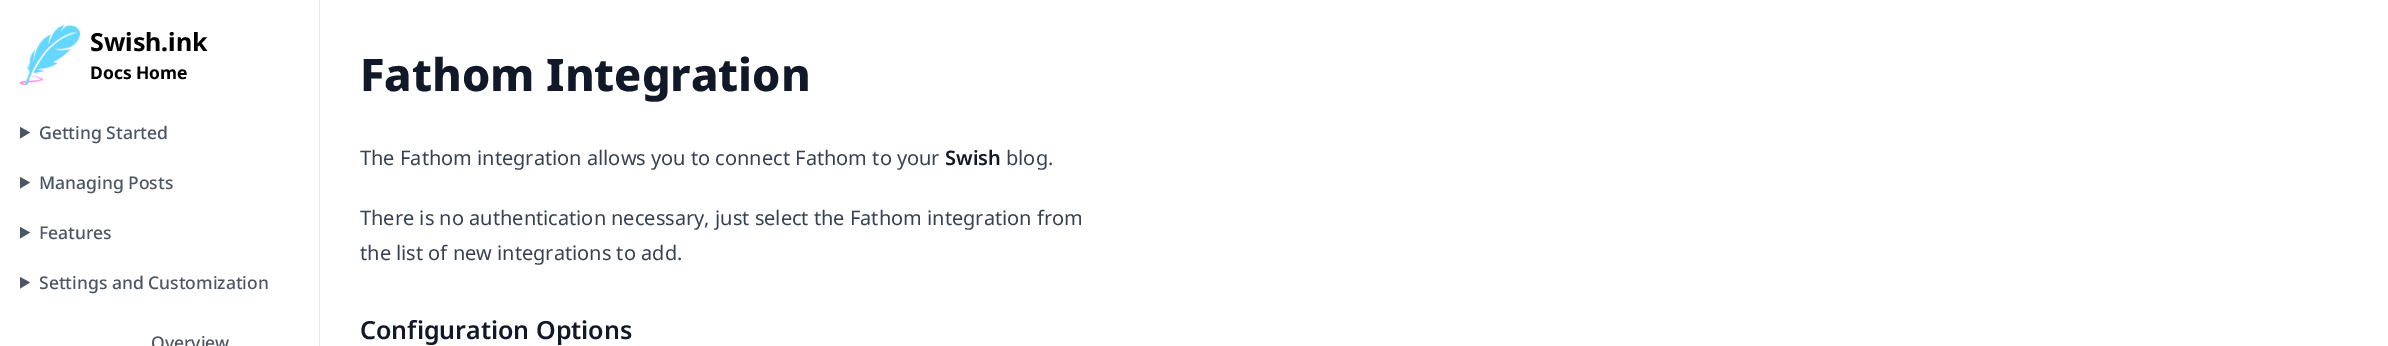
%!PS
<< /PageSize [2388 346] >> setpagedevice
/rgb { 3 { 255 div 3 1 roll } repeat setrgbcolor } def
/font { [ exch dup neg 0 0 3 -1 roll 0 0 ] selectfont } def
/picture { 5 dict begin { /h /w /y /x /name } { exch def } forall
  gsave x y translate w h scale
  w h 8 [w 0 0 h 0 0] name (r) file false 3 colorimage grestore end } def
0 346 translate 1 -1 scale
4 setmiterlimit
255 255 255 rgb
0 0 2388 346 rectfill
229 231 235 rgb
319 0 1 346 rectfill
(img/1.rgb) 20 25 60 60 picture
75 85 99 rgb
20 127 moveto 30 132.5 lineto 20 138.5 lineto closepath fill
20 177 moveto 30 182.5 lineto 20 188.5 lineto closepath fill
20 227 moveto 30 232.5 lineto 20 238.5 lineto closepath fill
20 277 moveto 30 282.5 lineto 20 288.5 lineto closepath fill
/NotoSans-Bold 25 font
0 0 0 rgb
90 51 moveto (Swish.ink) show
/NotoSans-Bold 17.5 font
90 79 moveto (Docs Home) show
/NotoSans-Medium 17.5 font
75 85 99 rgb
[
  [(Getting Started) 39 139]
  [(Managing Posts) 39 189]
  [(Features) 39 239]
  [(Settings and Customization) 39 289]
  [(Overview) 151 349]
] { aload pop moveto show } forall
/NotoSans-ExtraBold 45 font
17 24 39 rgb
360 91 moveto (Fathom Integration) show
/NotoSans-Regular 20 font
55 65 81 rgb
360 165 moveto (The Fathom integration allows you to connect Fathom to your) show
/NotoSans-SemiBold 20 font
17 24 39 rgb
945 165 moveto (Swish) show
/NotoSans-Regular 20 font
55 65 81 rgb
[
  [(blog.) 1006 165]
  [(There is no authentication necessary, just select the Fathom integration from) 360 225]
  [(the list of new integrations to add.) 360 260]
] { aload pop moveto show } forall
/NotoSans-SemiBold 25 font
17 24 39 rgb
360 339 moveto (Configuration Options) show
showpage
